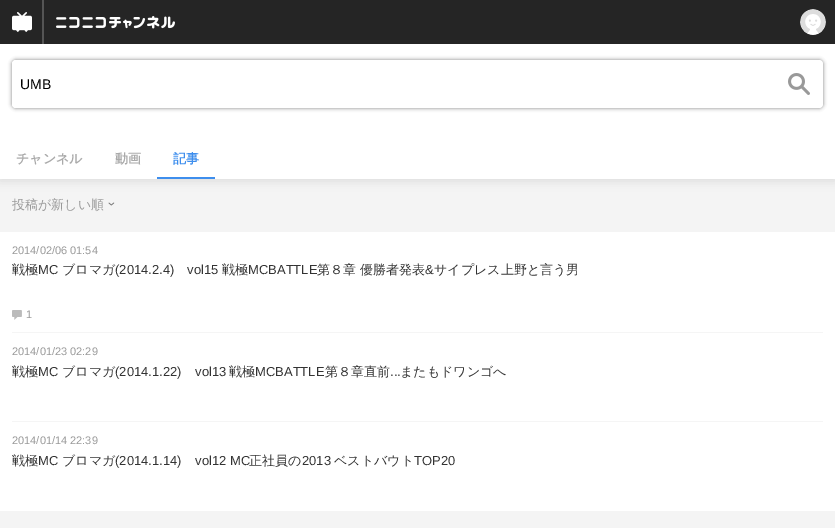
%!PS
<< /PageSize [835 528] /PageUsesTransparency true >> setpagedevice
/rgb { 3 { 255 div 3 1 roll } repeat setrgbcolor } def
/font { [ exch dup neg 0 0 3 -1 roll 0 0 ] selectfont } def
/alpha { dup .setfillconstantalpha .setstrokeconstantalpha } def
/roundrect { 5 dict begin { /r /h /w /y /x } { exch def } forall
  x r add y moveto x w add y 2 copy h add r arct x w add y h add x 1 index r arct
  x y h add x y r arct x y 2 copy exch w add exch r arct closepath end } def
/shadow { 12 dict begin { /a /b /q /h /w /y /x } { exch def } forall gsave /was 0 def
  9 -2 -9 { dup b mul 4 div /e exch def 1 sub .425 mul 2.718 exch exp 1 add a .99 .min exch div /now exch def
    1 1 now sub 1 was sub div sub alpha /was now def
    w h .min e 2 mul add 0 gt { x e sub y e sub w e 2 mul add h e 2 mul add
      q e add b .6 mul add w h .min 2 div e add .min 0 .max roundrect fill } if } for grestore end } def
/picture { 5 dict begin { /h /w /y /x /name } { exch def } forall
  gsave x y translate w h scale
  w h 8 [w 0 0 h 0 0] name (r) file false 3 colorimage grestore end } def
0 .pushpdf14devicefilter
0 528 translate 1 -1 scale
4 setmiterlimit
244 244 244 rgb
0 0 835 528 rectfill
125 125 125 rgb
0 46 835 135 0 5 0.2 shadow
37 37 37 rgb
0 0 835 44 rectfill
(img/1.rgb) 12 12 20 20 picture
85 85 85 rgb
42 0 2 44 rectfill
(img/2.rgb) 56 16 119 13 picture
(img/3.rgb) 800 9 26 26 picture
255 255 255 rgb
0 44 835 135 rectfill
0 0 0 rgb
12 60 811 48 4 2 0.5 shadow
255 255 255 rgb
12 60 811 48 4 roundrect fill
16 60 moveto 775 60 lineto 775 108 lineto 16 108 lineto 14 108 12 106 12 104 curveto 12 64 lineto 12 62 14 60 16 60 curveto closepath fill
(img/4.rgb) 788 73 22 22 picture
62 142 237 rgb
157 177 58 2 rectfill
(img/5.rgb) 108 202 7 4 picture
255 255 255 rgb
0 232 835 279 rectfill
(img/6.rgb) 12 310 10 10 picture
245 245 245 rgb
12 332 811 1 rectfill
12 421 811 1 rectfill
/LiberationSans-Regular 14 font
0 0 0 rgb
20 89 moveto (UMB) show
/WenQuanYiZenHei-Bold 13 font
170 170 170 rgb
16 163 moveto (チャンネル) show
115 163 moveto (動画) show
62 142 237 rgb
173 163 moveto (記事) show
/WenQuanYiZenHei-Medium 13 font
153 153 153 rgb
12 209 moveto (投稿が新しい順) show
/LiberationSans-Regular 11 font
12 254 moveto (2014/02/06 01:54) show
/WenQuanYiZenHei-Medium 13 font
51 51 51 rgb
12 274 moveto (戦極) show
/LiberationSans-Regular 13 font
38 274 moveto (MC) show
/WenQuanYiZenHei-Medium 13 font
62 274 moveto (ブロマガ) show
/LiberationSans-Regular 13 font
115 274 moveto (\(2014.2.4\)) show
187 274 moveto (vol15) show
/WenQuanYiZenHei-Medium 13 font
222 274 moveto (戦極) show
/LiberationSans-Regular 13 font
248 274 moveto (MCBATTLE) show
/WenQuanYiZenHei-Medium 13 font
317 274 moveto (第８章 優勝者発表) show
/LiberationSans-Regular 13 font
425 274 moveto (&) show
/WenQuanYiZenHei-Medium 13 font
434 274 moveto (サイプレス上野と言う男) show
/LiberationSans-Regular 11 font
153 153 153 rgb
26 318 moveto (1) show
12 355 moveto (2014/01/23 02:29) show
/WenQuanYiZenHei-Medium 13 font
51 51 51 rgb
12 376 moveto (戦極) show
/LiberationSans-Regular 13 font
38 376 moveto (MC) show
/WenQuanYiZenHei-Medium 13 font
62 376 moveto (ブロマガ) show
/LiberationSans-Regular 13 font
115 376 moveto (\(2014.1.22\)) show
195 376 moveto (vol13) show
/WenQuanYiZenHei-Medium 13 font
229 376 moveto (戦極) show
/LiberationSans-Regular 13 font
255 376 moveto (MCBATTLE) show
/WenQuanYiZenHei-Medium 13 font
325 376 moveto (第８章直前) show
/LiberationSans-Regular 13 font
390 376 moveto (...) show
/WenQuanYiZenHei-Medium 13 font
400 376 moveto (またもドワンゴへ) show
/LiberationSans-Regular 11 font
153 153 153 rgb
12 444 moveto (2014/01/14 22:39) show
/WenQuanYiZenHei-Medium 13 font
51 51 51 rgb
12 465 moveto (戦極) show
/LiberationSans-Regular 13 font
38 465 moveto (MC) show
/WenQuanYiZenHei-Medium 13 font
62 465 moveto (ブロマガ) show
/LiberationSans-Regular 13 font
115 465 moveto (\(2014.1.14\)) show
195 465 moveto (vol12 MC) show
/WenQuanYiZenHei-Medium 13 font
249 465 moveto (正社員の) show
/LiberationSans-Regular 13 font
302 465 moveto (2013) show
/WenQuanYiZenHei-Medium 13 font
334 465 moveto (ベストバウト) show
/LiberationSans-Regular 13 font
414 465 moveto (TOP20) show
.poppdf14devicefilter showpage
